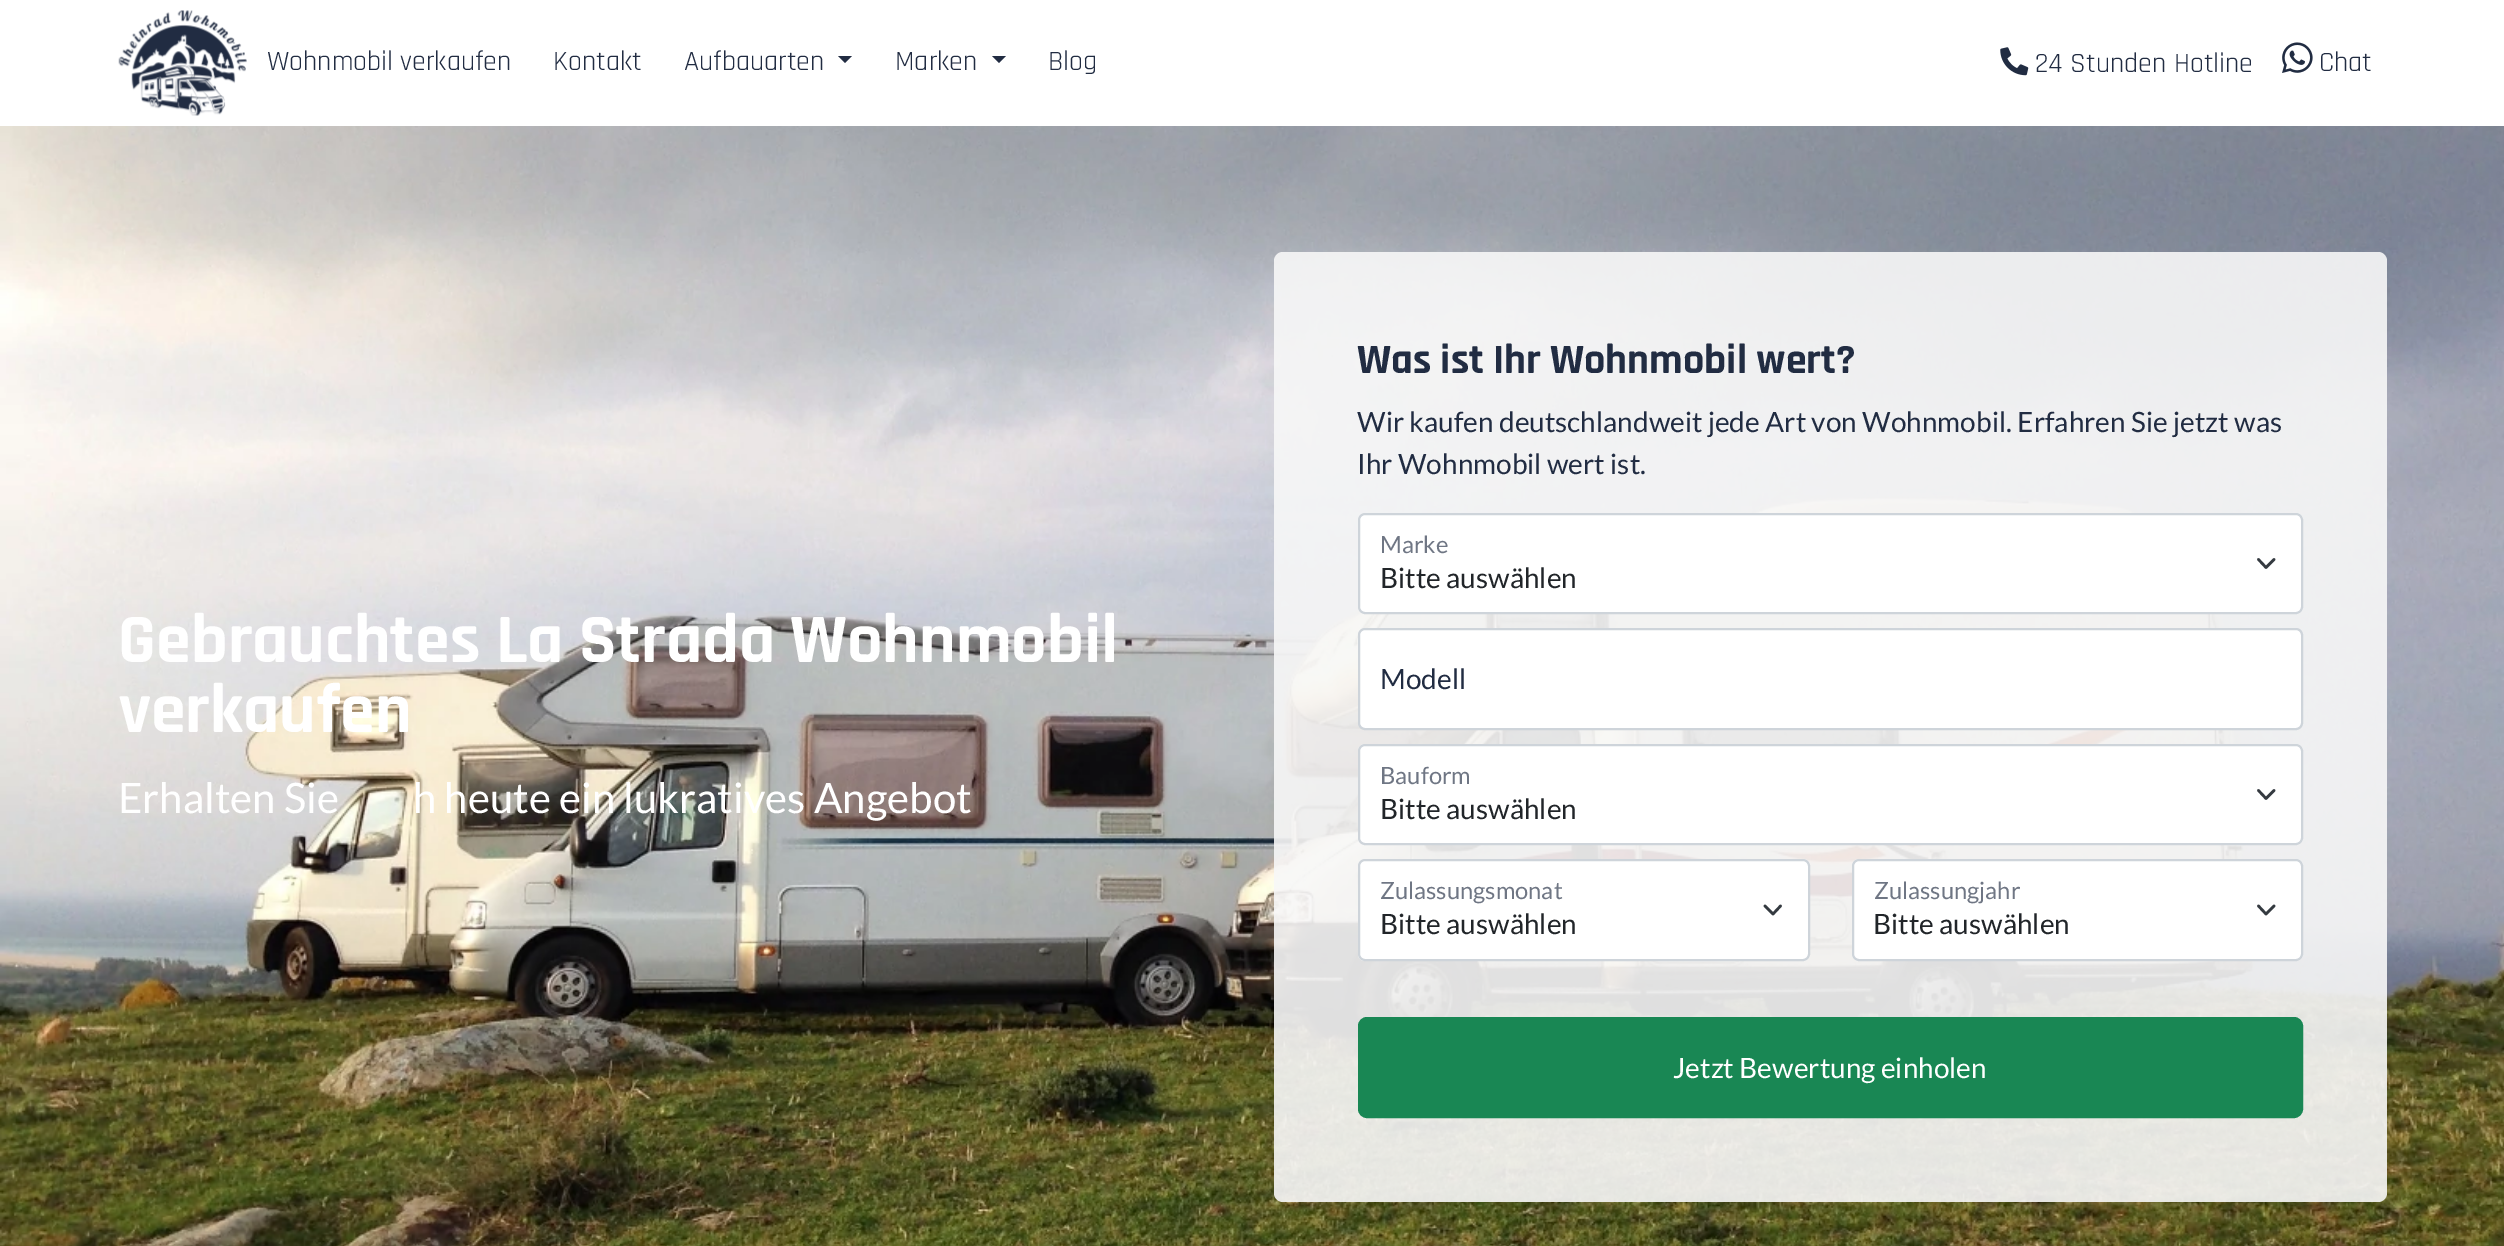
%!PS
<< /PageSize [2504 1246] /PageUsesTransparency true >> setpagedevice
/rgb { 3 { 255 div 3 1 roll } repeat setrgbcolor } def
/font { [ exch dup neg 0 0 3 -1 roll 0 0 ] selectfont } def
/alpha { dup .setfillconstantalpha .setstrokeconstantalpha } def
/roundrect { 5 dict begin { /r /h /w /y /x } { exch def } forall
  x r add y moveto x w add y 2 copy h add r arct x w add y h add x 1 index r arct
  x y h add x y r arct x y 2 copy exch w add exch r arct closepath end } def
/picture { 5 dict begin { /h /w /y /x /name } { exch def } forall
  gsave x y translate w h scale
  w h 8 [w 0 0 h 0 0] name (r) file false 3 colorimage grestore end } def
0 .pushpdf14devicefilter
0 1246 translate 1 -1 scale
4 setmiterlimit
255 255 255 rgb
0 0 2504 1246 rectfill
(img/1.rgb) 118 10 129 106 picture
33 44 66 rgb
838 56 moveto 852 56 lineto 845 63 lineto closepath fill
992 56 moveto 1006 56 lineto 999 63 lineto closepath fill
(img/2.rgb) 2000 47 29 29 picture
(img/3.rgb) 2282 42 31 31 picture
(img/4.rgb) 0 126 2504 1120 picture
0.9 alpha
247 247 247 rgb
1274 252 1113 950 9 roundrect fill
1 alpha
255 255 255 rgb
1358 513 945 101 7 roundrect fill
52 58 64 rgb
2.6 setlinewidth
1 setlinecap
1 setlinejoin
2258.5 559.5 moveto 2266 567.5 lineto 2274 559.5 lineto stroke
206 212 218 rgb
2 setlinewidth
0 setlinecap
0 setlinejoin
1359 514 943 99 6 roundrect stroke
255 255 255 rgb
1359 629 943 100 6 roundrect gsave fill grestore
206 212 218 rgb
stroke
255 255 255 rgb
1358 744 945 101 7 roundrect fill
52 58 64 rgb
2.6 setlinewidth
1 setlinecap
1 setlinejoin
2258.5 790.5 moveto 2266 798.5 lineto 2274 790.5 lineto stroke
206 212 218 rgb
2 setlinewidth
0 setlinecap
0 setlinejoin
1359 745 943 99 6 roundrect stroke
255 255 255 rgb
1358 859 452 102 7 roundrect fill
52 58 64 rgb
2.6 setlinewidth
1 setlinecap
1 setlinejoin
1765 906 moveto 1773 914 lineto 1780.5 906 lineto stroke
206 212 218 rgb
2 setlinewidth
0 setlinecap
0 setlinejoin
1359 860 450 100 6 roundrect stroke
255 255 255 rgb
1852 859 451 102 7 roundrect fill
52 58 64 rgb
2.6 setlinewidth
1 setlinecap
1 setlinejoin
2258.5 906 moveto 2266 914 lineto 2274 906 lineto stroke
206 212 218 rgb
2 setlinewidth
0 setlinecap
0 setlinejoin
1853 860 449 100 6 roundrect stroke
25 135 84 rgb
1359 1018 943 99 8 roundrect gsave fill grestore
stroke
/Rajdhani-Regular 28 font
33 44 66 rgb
[
  [(Wohnmobil verkaufen) 267 70]
  [(Kontakt) 553 70]
  [(Aufbauarten) 684 70]
  [(Marken) 895 70]
  [(Blog) 1048 70]
  [(24 Stunden Hotline) 2035 72]
  [(Chat) 2319 71]
] { aload pop moveto show } forall
/Rajdhani-Bold 70 font
255 255 255 rgb
118 662 moveto (Gebrauchtes La Strada Wohnmobil) show
118 732 moveto (verkaufen) show
/Lato-Regular 42 font
118 813 moveto (Erhalten Sie) show
413 813 moveto (h heute ein lukratives Angebot) show
/Rajdhani-Bold 42 font
33 44 66 rgb
1357 373 moveto (Was ist Ihr Wohnmobil wert?) show
/Lato-Regular 28 font
1357 432 moveto (Wir kaufen deutschlandweit jede Art von Wohnmobil. Erfahren Sie jetzt was) show
1357 474 moveto (Ihr Wohnmobil wert ist.) show
/Lato-Regular 23.75 font
111 118 132 rgb
1380 553 moveto (Marke) show
/Lato-Regular 28 font
33 37 41 rgb
1380 588 moveto (Bitte auswählen) show
33 44 66 rgb
1380 689 moveto (Modell) show
/Lato-Regular 23.75 font
111 118 132 rgb
1380 784 moveto (Bauform) show
/Lato-Regular 28 font
33 37 41 rgb
1380 819 moveto (Bitte auswählen) show
/Lato-Regular 23.75 font
111 118 132 rgb
1380 899 moveto (Zulassungsmonat) show
/Lato-Regular 28 font
33 37 41 rgb
1380 934 moveto (Bitte auswählen) show
/Lato-Regular 23.75 font
111 118 132 rgb
1874 899 moveto (Zulassungjahr) show
/Lato-Regular 28 font
33 37 41 rgb
1873 934 moveto (Bitte auswählen) show
255 255 255 rgb
1673 1078 moveto (Jetzt Bewertung einholen) show
.poppdf14devicefilter showpage
